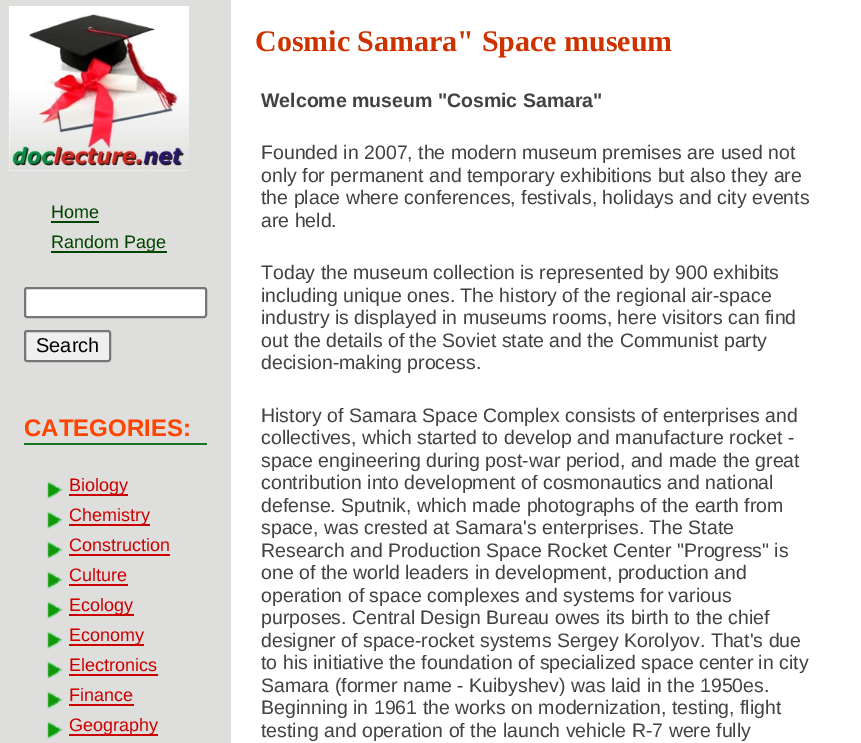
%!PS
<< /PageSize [861 743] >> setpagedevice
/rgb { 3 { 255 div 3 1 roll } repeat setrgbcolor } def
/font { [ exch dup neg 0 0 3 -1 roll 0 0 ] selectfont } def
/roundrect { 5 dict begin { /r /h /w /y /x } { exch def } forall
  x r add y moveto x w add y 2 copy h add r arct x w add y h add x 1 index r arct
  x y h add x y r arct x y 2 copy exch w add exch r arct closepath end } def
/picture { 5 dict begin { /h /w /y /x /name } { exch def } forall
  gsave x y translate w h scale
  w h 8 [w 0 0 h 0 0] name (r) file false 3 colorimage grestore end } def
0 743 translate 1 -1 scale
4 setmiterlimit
222 222 220 rgb
0 0 861 743 rectfill
(img/1.rgb) 9 6 180 165 picture
0 68 0 rgb
51 221 48 2 rectfill
51 251 116 2 rectfill
255 255 255 rgb
25 288 181 29 2 roundrect gsave fill grestore
118 118 118 rgb
2 setlinewidth
stroke
239 239 239 rgb
25 331 85 30 2 roundrect gsave fill grestore
118 118 118 rgb
stroke
21 119 33 rgb
24 443 183 2 rectfill
(img/2.rgb) 46 481 17 18 picture
204 0 0 rgb
69 494 59 2 rectfill
(img/2.rgb) 46 511 17 18 picture
69 524 81 2 rectfill
(img/2.rgb) 46 541 17 18 picture
69 554 101 2 rectfill
(img/2.rgb) 46 571 17 18 picture
69 584 59 2 rectfill
(img/2.rgb) 46 601 17 18 picture
69 614 65 2 rectfill
(img/2.rgb) 46 631 17 18 picture
69 644 75 2 rectfill
(img/2.rgb) 46 661 17 18 picture
69 674 89 2 rectfill
(img/2.rgb) 46 691 17 18 picture
69 704 65 2 rectfill
(img/2.rgb) 46 721 17 18 picture
69 734 89 2 rectfill
255 255 255 rgb
231 0 630 743 rectfill
/LiberationSans-Regular 18 font
0 68 0 rgb
51 218 moveto (Home) show
51 248 moveto (Random Page) show
/LiberationSans-Regular 20 font
0 0 0 rgb
36 352 moveto (Search) show
/LiberationSans-Bold 24 font
255 68 0 rgb
24 436 moveto (CATEGORIES:) show
/LiberationSans-Regular 18 font
204 0 0 rgb
[
  [(Biology) 69 491]
  [(Chemistry) 69 521]
  [(Construction) 69 551]
  [(Culture) 69 581]
  [(Ecology) 69 611]
  [(Economy) 69 641]
  [(Electronics) 69 671]
  [(Finance) 69 701]
  [(Geography) 69 731]
] { aload pop moveto show } forall
/LiberationSerif-Bold 30 font
204 51 0 rgb
255 51 moveto (Cosmic Samara" Space museum) show
/LiberationSans-Bold 19.5 font
66 66 66 rgb
261 107 moveto (Welcome museum "Cosmic Samara") show
/LiberationSans-Regular 19.5 font
[
  [(Founded in 2007, the modern museum premises are used not) 261 159]
  [(only for permanent and temporary exhibitions but also they are) 261 182]
  [(the place where conferences, festivals, holidays and city events) 261 204]
  [(are held.) 261 227]
  [(Today the museum collection is represented by 900 exhibits) 261 279]
  [(including unique ones. The history of the regional air-space) 261 302]
  [(industry is displayed in museums rooms, here visitors can find) 261 324]
  [(out the details of the Soviet state and the Communist party) 261 347]
  [(decision-making process.) 261 369]
  [(History of Samara Space Complex consists of enterprises and) 261 422]
  [(collectives, which started to develop and manufacture rocket -) 261 444]
  [(space engineering during post-war period, and made the great) 261 467]
  [(contribution into development of cosmonautics and national) 261 489]
  [(defense. Sputnik, which made photographs of the earth from) 261 512]
  [(space, was crested at Samara's enterprises. The State) 261 534]
  [(Research and Production Space Rocket Center "Progress" is) 261 557]
  [(one of the world leaders in development, production and) 261 579]
  [(operation of space complexes and systems for various) 261 602]
  [(purposes. Central Design Bureau owes its birth to the chief) 261 624]
  [(designer of space-rocket systems Sergey Korolyov. That's due) 261 647]
  [(to his initiative the foundation of specialized space center in city) 261 669]
  [(Samara \(former name - Kuibyshev\) was laid in the 1950es.) 261 692]
  [(Beginning in 1961 the works on modernization, testing, flight) 261 714]
  [(testing and operation of the launch vehicle R-7 were fully) 261 737]
] { aload pop moveto show } forall
showpage
